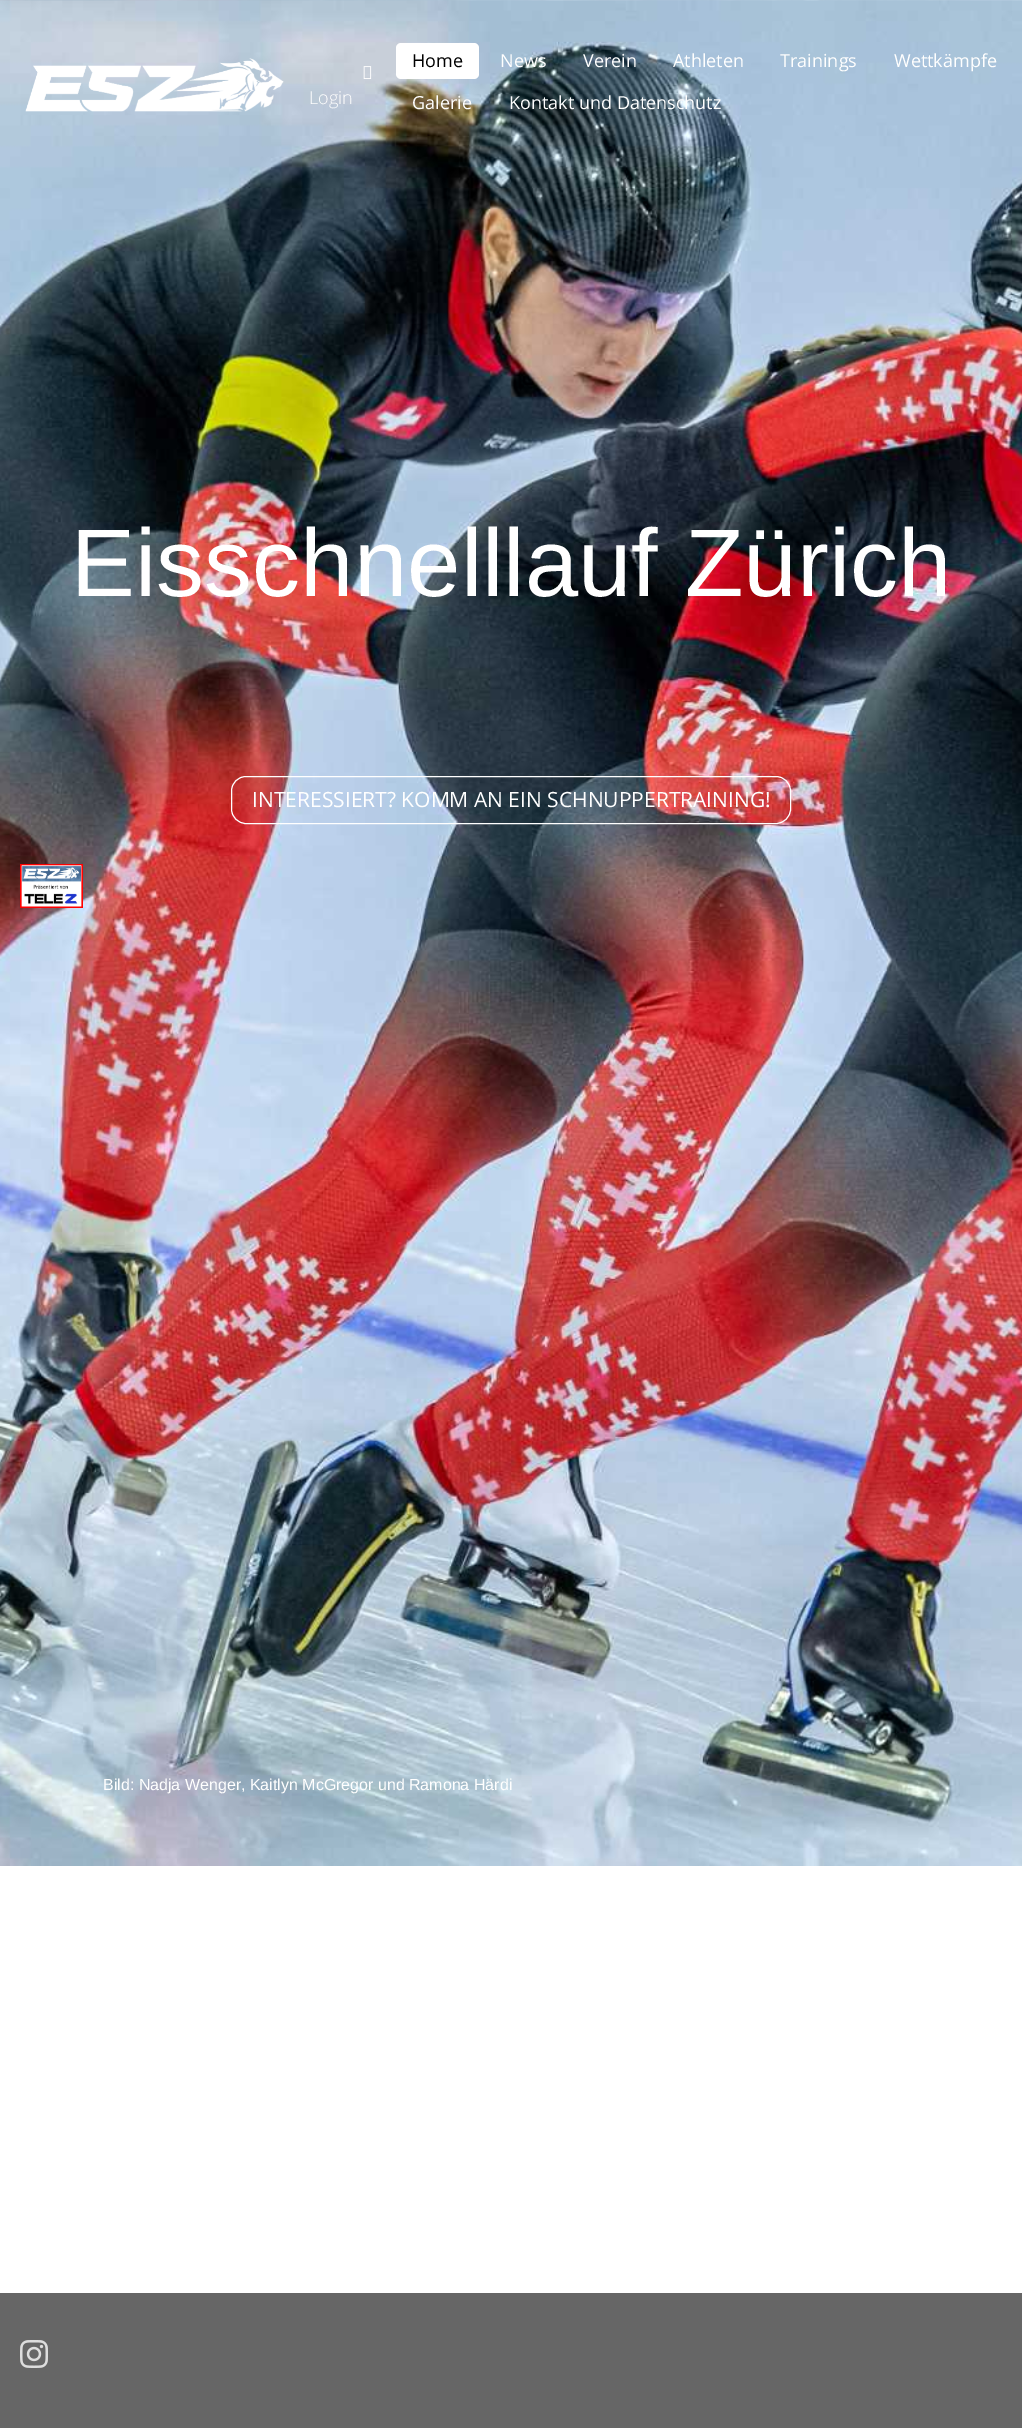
%!PS
<< /PageSize [1022 2428] >> setpagedevice
/rgb { 3 { 255 div 3 1 roll } repeat setrgbcolor } def
/font { [ exch dup neg 0 0 3 -1 roll 0 0 ] selectfont } def
/roundrect { 5 dict begin { /r /h /w /y /x } { exch def } forall
  x r add y moveto x w add y 2 copy h add r arct x w add y h add x 1 index r arct
  x y h add x y r arct x y 2 copy exch w add exch r arct closepath end } def
/picture { 5 dict begin { /h /w /y /x /name } { exch def } forall
  gsave x y translate w h scale
  w h 8 [w 0 0 h 0 0] name (r) file false 3 colorimage grestore end } def
0 2428 translate 1 -1 scale
4 setmiterlimit
255 255 255 rgb
0 0 1022 2428 rectfill
(img/3.rgb) 0 0 1022 1866 picture
(img/1.rgb) 25 58 259 54 picture
(img/2.rgb) 363 66 9 13 picture
396 43 83 36 5 roundrect fill
231.5 776.5 559 47 14.5 roundrect stroke
(img/4.rgb) 20 864 63 44 picture
102 102 102 rgb
0 2293 1022 135 rectfill
(img/5.rgb) 20 2340 28 28 picture
/OpenSans-Light 18 font
255 255 255 rgb
309 104 moveto (Login) show
/OpenSans-Regular 18 font
0 0 0 rgb
412 67 moveto (Home) show
255 255 255 rgb
[
  [(News) 500 67]
  [(Verein) 583 67]
  [(Athleten) 673 67]
  [(Trainings) 780 67]
  [(Wettkämpfe) 894 67]
  [(Galerie) 412 109]
  [(Kontakt und Datenschutz) 509 109]
] { aload pop moveto show } forall
/LiberationSans-Regular 96 font
71 596 moveto (Eisschnelllauf Zürich) show
/OpenSans-Regular 21 font
252 807 moveto (INTERESSIERT? KOMM AN EIN SCHNUPPERTRAINING!) show
/LiberationSans-Regular 16 font
103 1790 moveto (Bild: Nadja Wenger, Kaitlyn McGregor und Ramona Härdi) show
showpage
